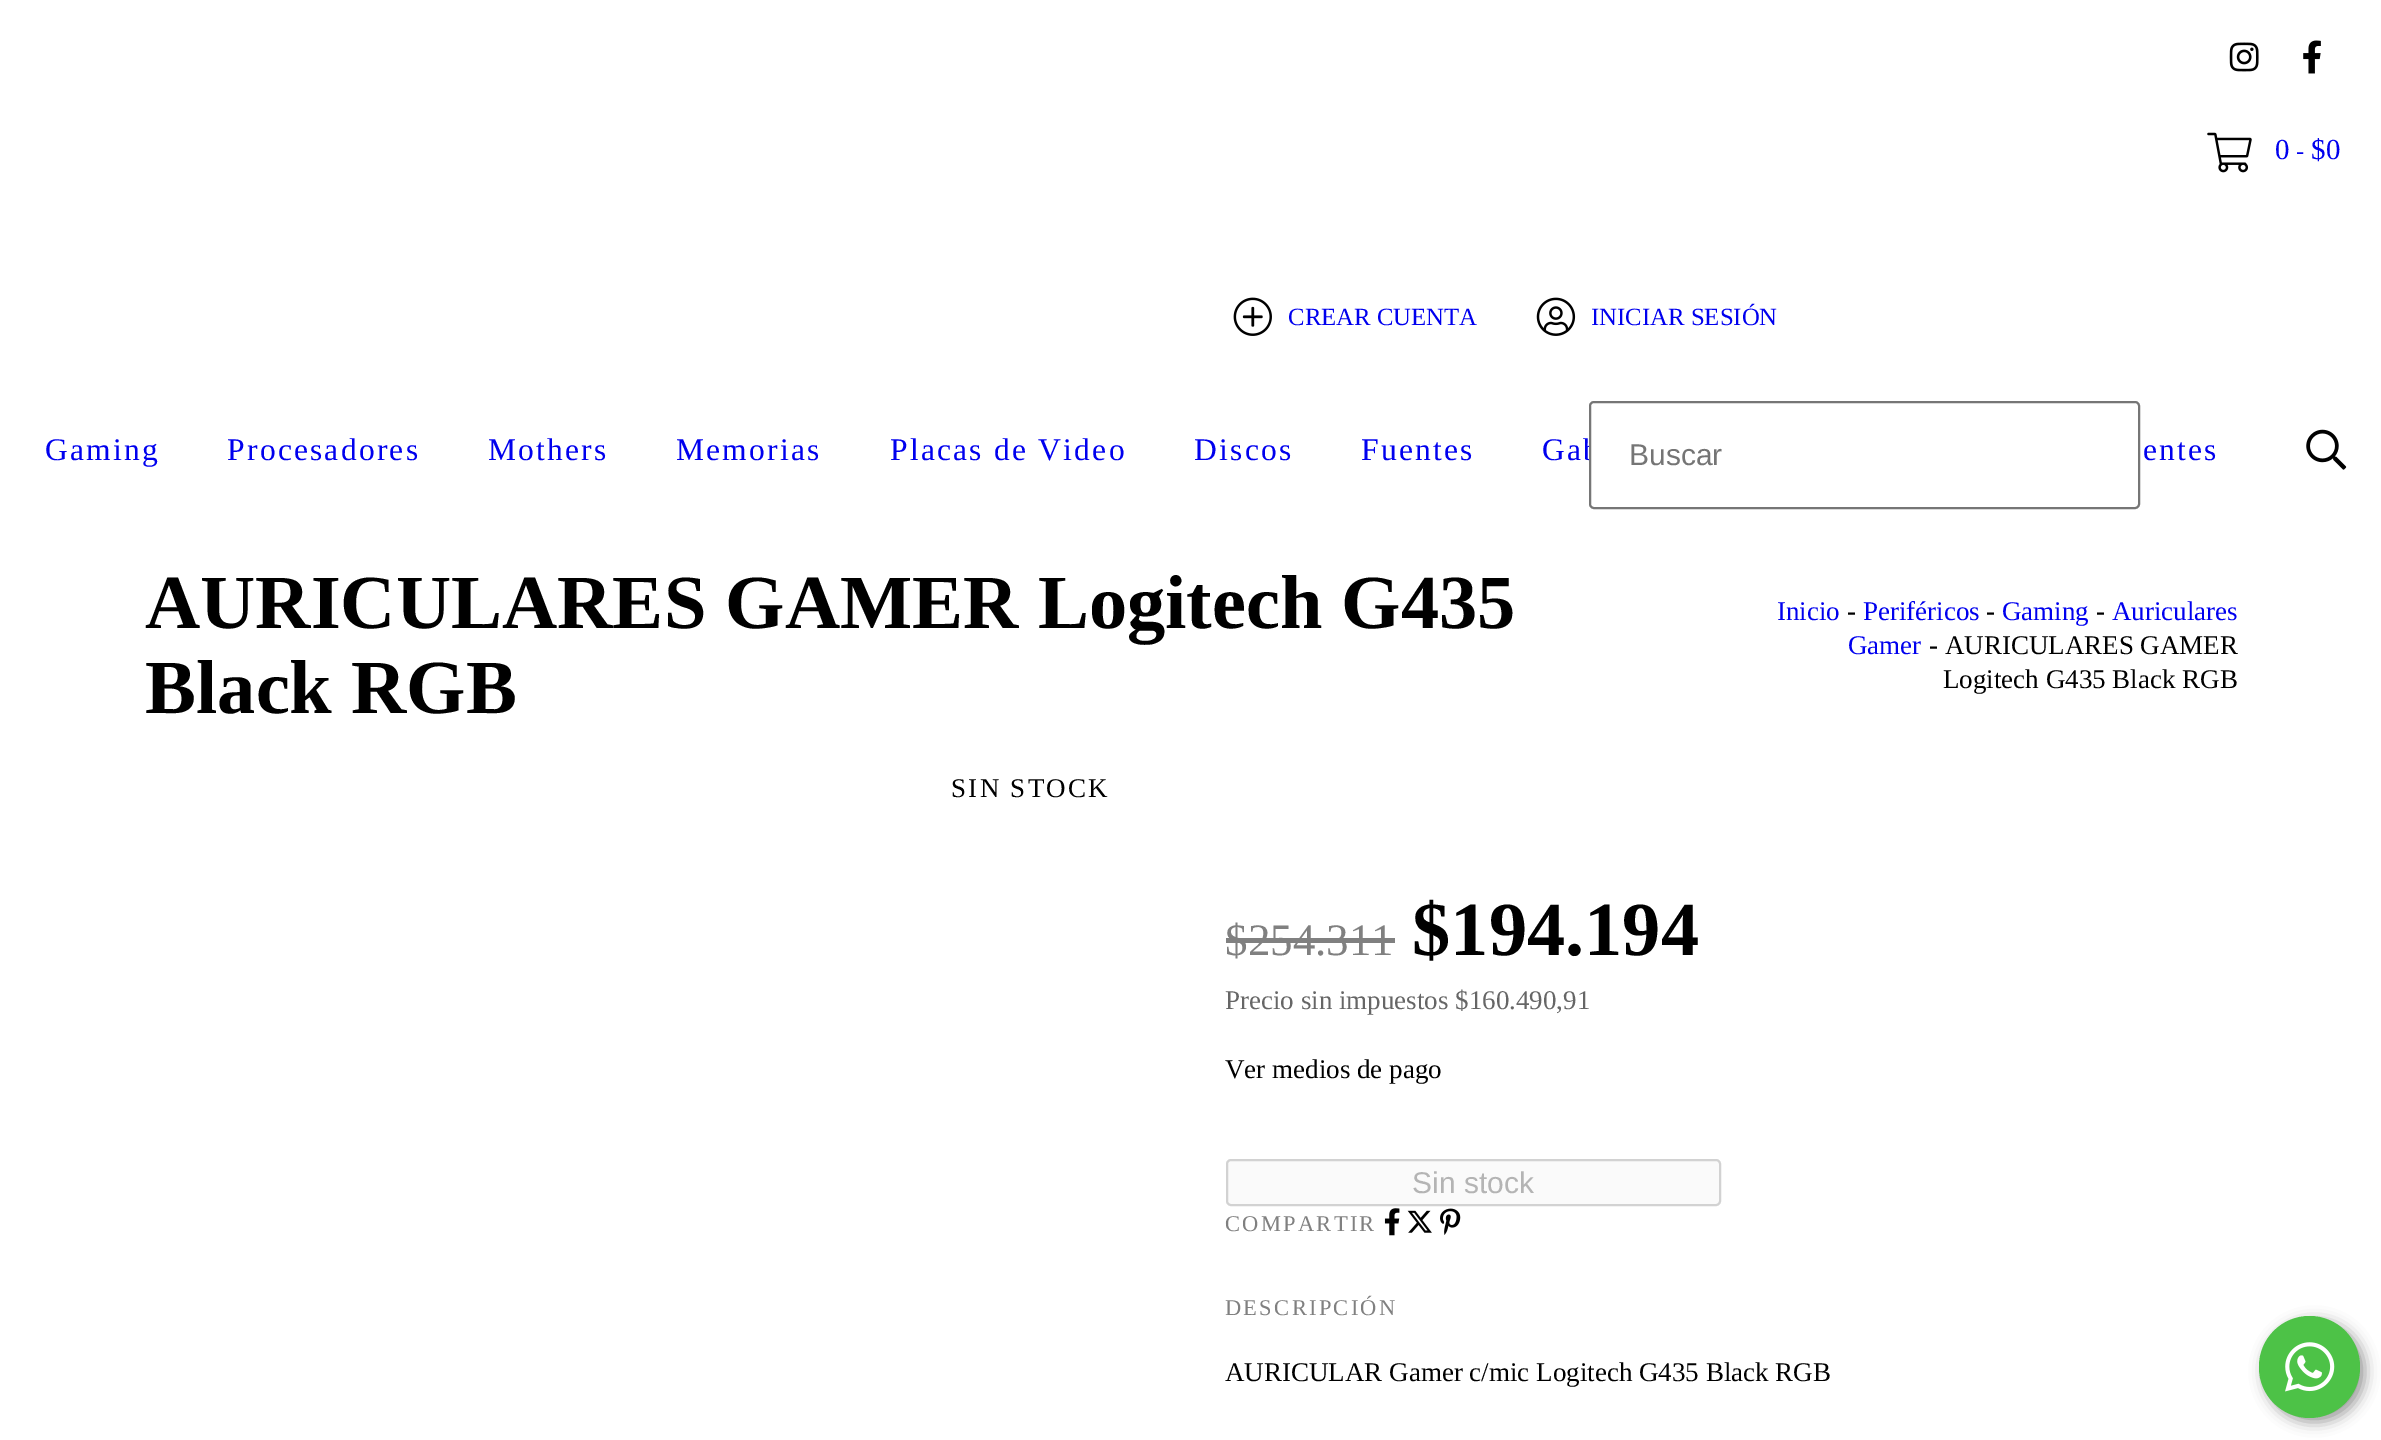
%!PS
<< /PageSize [2381 1440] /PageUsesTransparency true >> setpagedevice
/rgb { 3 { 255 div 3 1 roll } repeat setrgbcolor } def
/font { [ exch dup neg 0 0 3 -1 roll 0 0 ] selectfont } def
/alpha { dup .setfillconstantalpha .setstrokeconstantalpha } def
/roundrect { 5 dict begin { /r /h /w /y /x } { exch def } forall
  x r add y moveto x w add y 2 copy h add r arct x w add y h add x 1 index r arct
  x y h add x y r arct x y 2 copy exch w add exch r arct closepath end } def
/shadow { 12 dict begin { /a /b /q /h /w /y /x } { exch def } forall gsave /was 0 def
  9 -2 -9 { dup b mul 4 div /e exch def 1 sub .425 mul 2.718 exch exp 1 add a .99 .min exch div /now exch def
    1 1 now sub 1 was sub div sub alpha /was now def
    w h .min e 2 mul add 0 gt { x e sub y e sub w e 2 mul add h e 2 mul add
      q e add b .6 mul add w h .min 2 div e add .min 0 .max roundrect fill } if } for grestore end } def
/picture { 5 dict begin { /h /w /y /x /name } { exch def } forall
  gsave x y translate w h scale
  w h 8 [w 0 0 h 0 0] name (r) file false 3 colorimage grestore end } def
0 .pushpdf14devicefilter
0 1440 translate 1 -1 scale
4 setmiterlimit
255 255 255 rgb
0 0 2381 1440 rectfill
(img/1.rgb) 2229 42 30 30 picture
(img/2.rgb) 2303 40 18 34 picture
(img/3.rgb) 2207 132 45 41 picture
(img/4.rgb) 1233 297 39 39 picture
(img/5.rgb) 1536 297 40 39 picture
(img/6.rgb) 2306 429 41 41 picture
128 128 128 rgb
1226 938 169 5 rectfill
250 250 250 rgb
1227 1160 493 45 4 roundrect gsave fill grestore
210 210 210 rgb
2 setlinewidth
stroke
(img/7.rgb) 1384 1208 16 28 picture
(img/8.rgb) 1407 1210 25 23 picture
(img/9.rgb) 1440 1208 21 27 picture
0 0 0 rgb
2264 1321 101 101 50.5 7 0.4 shadow
77 194 71 rgb
2259 1316 101 102 50.5 roundrect fill
(img/10.rgb) 2285 1342 50 50 picture
/LiberationSerif-Regular 29 font
0 0 238 rgb
2275 159 moveto (0) show
/LiberationSerif-Regular 24.75 font
2296 159 moveto (-) show
/LiberationSerif-Regular 29 font
2311 159 moveto ($0) show
/LiberationSerif-Regular 24.75 font
1288 325 moveto (CREAR CUENTA) show
1591 325 moveto (INICIAR SESIÓN) show
/LiberationSerif-Regular 31.5 font
45 460 moveto 2.25 0 (Gaming) ashow
227 460 moveto 2.25 0 (Procesadores) ashow
488 460 moveto 2.25 0 (Mothers) ashow
676 460 moveto 2.25 0 (Memorias) ashow
890 460 moveto 2.25 0 (Placas de Video) ashow
1194 460 moveto 2.25 0 (Discos) ashow
1361 460 moveto 2.25 0 (Fuentes) ashow
1542 460 moveto 2.25 0 (Gab) ashow
2143 460 moveto 2.25 0 (entes) ashow
255 255 255 rgb
1590 402 549 106 4 roundrect gsave fill grestore
118 118 118 rgb
stroke
/LiberationSans-Regular 30 font
117 117 117 rgb
1629 465 moveto (Buscar) show
/LiberationSerif-Bold 76.5 font
0 0 0 rgb
145 628 moveto (AURICULARES GAMER Logitech G435) show
145 713 moveto (Black RGB) show
/LiberationSerif-Regular 27 font
0 0 238 rgb
1777 620 moveto (Inicio) show
0 0 0 rgb
1847 620 moveto (-) show
0 0 238 rgb
1863 620 moveto (Periféricos) show
0 0 0 rgb
1986 620 moveto (-) show
0 0 238 rgb
2002 620 moveto (Gaming) show
0 0 0 rgb
2096 620 moveto (-) show
0 0 238 rgb
2112 620 moveto (Auriculares) show
1848 654 moveto (Gamer) show
0 0 0 rgb
1929 654 moveto (- AURICULARES GAMER) show
1943 688 moveto (Logitech G435 Black RGB) show
951 797 moveto 2.25 0 (SIN STOCK) ashow
/LiberationSerif-Regular 45 font
128 128 128 rgb
1225 955 moveto ($254.311) show
/LiberationSerif-Bold 76.5 font
0 0 0 rgb
1412 955 moveto ($194.194) show
/LiberationSerif-Regular 27 font
102 102 102 rgb
1225 1009 moveto (Precio sin impuestos $160.490,91) show
0 0 0 rgb
1225 1078 moveto (Ver medios de pago) show
/LiberationSans-Regular 30 font
180 180 180 rgb
1412 1193 moveto (Sin stock) show
/LiberationSerif-Regular 22.5 font
128 128 128 rgb
1225 1231 moveto 2.25 0 (COMPARTIR) ashow
1225 1315 moveto 2.25 0 (DESCRIPCIÓN) ashow
/LiberationSerif-Regular 27 font
0 0 0 rgb
1225 1381 moveto (AURICULAR Gamer c/mic Logitech G435 Black RGB) show
.poppdf14devicefilter showpage
